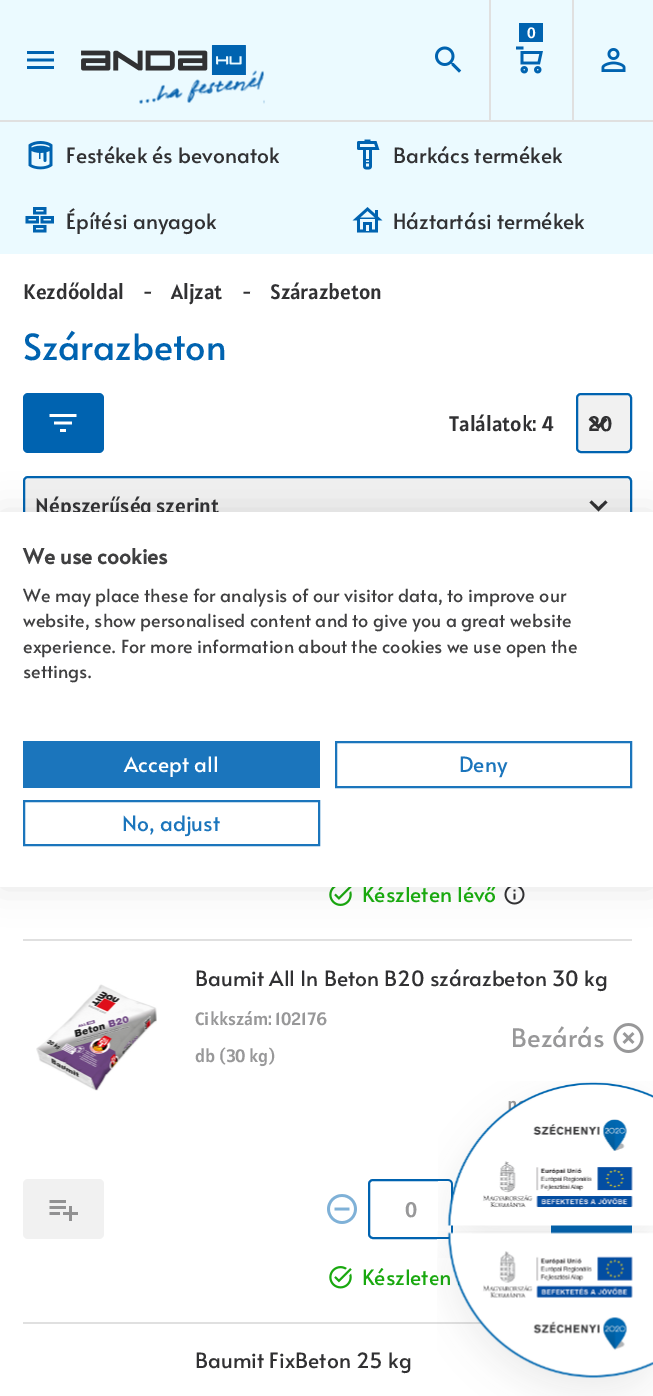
%!PS
<< /PageSize [653 1396] /PageUsesTransparency true >> setpagedevice
/rgb { 3 { 255 div 3 1 roll } repeat setrgbcolor } def
/font { [ exch dup neg 0 0 3 -1 roll 0 0 ] selectfont } def
/alpha { dup .setfillconstantalpha .setstrokeconstantalpha } def
/roundrect { 5 dict begin { /r /h /w /y /x } { exch def } forall
  x r add y moveto x w add y 2 copy h add r arct x w add y h add x 1 index r arct
  x y h add x y r arct x y 2 copy exch w add exch r arct closepath end } def
/shadow { 12 dict begin { /a /b /q /h /w /y /x } { exch def } forall gsave /was 0 def
  9 -2 -9 { dup b mul 4 div /e exch def 1 sub .425 mul 2.718 exch exp 1 add a .99 .min exch div /now exch def
    1 1 now sub 1 was sub div sub alpha /was now def
    w h .min e 2 mul add 0 gt { x e sub y e sub w e 2 mul add h e 2 mul add
      q e add b .6 mul add w h .min 2 div e add .min 0 .max roundrect fill } if } for grestore end } def
/picture { 5 dict begin { /h /w /y /x /name } { exch def } forall
  gsave x y translate w h scale
  w h 8 [w 0 0 h 0 0] name (r) file false 3 colorimage grestore end } def
0 .pushpdf14devicefilter
0 1396 translate 1 -1 scale
4 setmiterlimit
255 255 255 rgb
0 0 653 1396 rectfill
[
  [0 0 653 254 235 250 255]
  [489 0 2 120 224 224 224]
  [519 23 24 19 0 99 176]
] { aload pop rgb rectfill } forall
(img/1.rgb) 516 46 27 28 picture
224 224 224 rgb
572 0 2 120 rectfill
(img/2.rgb) 601 48 25 24 picture
(img/3.rgb) 27 51 27 18 picture
(img/4.rgb) 81 45 165 30 picture
(img/5.rgb) 139 70 126 34 picture
(img/6.rgb) 435 46 27 27 picture
0 120 653 2 rectfill
(img/7.rgb) 28 141 25 29 picture
(img/8.rgb) 357 139 23 31 picture
(img/9.rgb) 25 207 29 26 picture
(img/10.rgb) 352 207 31 26 picture
0 99 176 rgb
23 393 81 60 5 roundrect fill
(img/11.rgb) 49 414 28 18 picture
241 241 241 rgb
577 394 54 58 4 roundrect gsave fill grestore
0 99 176 rgb
2 setlinewidth
stroke
49 49 51 rgb
605.5 418 moveto 598.5 424.5 lineto 591.5 418 lineto 589.5 420 lineto 598.5 429 lineto 607.5 420 lineto closepath fill
241 241 241 rgb
24 477 607 58 4 roundrect gsave fill grestore
0 99 176 rgb
stroke
49 49 51 rgb
605.5 500.5 moveto 598.5 507 lineto 591.5 500.5 lineto 589.5 502.5 lineto 598.5 511.5 lineto 607.5 502.5 lineto closepath fill
224 224 224 rgb
23 939 609 2 rectfill
(img/12.rgb) 329 887 23 19 picture
(img/13.rgb) 504 887 21 18 picture
23 1322 459 2 rectfill
(img/14.rgb) 36 984 121 107 picture
241 241 241 rgb
23 1179 81 60 5 roundrect fill
(img/15.rgb) 49 1200 29 21 picture
(img/16.rgb) 327 1194 30 30 picture
0 99 176 rgb
369 1180 83 58 4 roundrect stroke
551 1225 81 9 rectfill
(img/17.rgb) 329 1266 23 23 picture
(img/18.rgb) 613 1023 31 30 picture
0 0 0 rgb
0 512 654 375 0 18 0.1 shadow
/Alatsi-Regular 15 font
255 255 255 rgb
527 38 moveto (0) show
/Alata-Regular 21 font
49 49 51 rgb
[
  [(Festékek és bevonatok) 66 163]
  [(Barkács termékek) 393 163]
  [(Építési anyagok) 66 229]
  [(Háztartási termékek) 393 229]
] { aload pop moveto show } forall
/Alatsi-Regular 21 font
[
  [(Kezdőoldal) 23 299]
  [(-) 143 299]
  [(Aljzat) 171 299]
  [(-) 242 299]
  [(Szárazbeton) 270 299]
] { aload pop moveto show } forall
/Alata-Regular 36 font
0 99 176 rgb
23 360 moveto (Szárazbeton) show
/Alatsi-Regular 21 font
49 49 51 rgb
[
  [(Találatok: 4) 449 431]
  [(20) 588 431]
  [(Népszerűség szerint) 35 513]
] { aload pop moveto show } forall
/Alata-Regular 21 font
25 168 15 rgb
362 902 moveto (Készleten lévő) show
49 49 51 rgb
195 986 moveto (Baumit All In Beton B20 szárazbeton 30 kg) show
/Alatsi-Regular 18 font
152 152 153 rgb
[
  [(Cikkszám: 102176) 195 1025]
  [(db \(30 kg\)) 195 1062]
  [(n) 507 1110]
] { aload pop moveto show } forall
/Alatsi-Regular 21 font
405 1217 moveto (0) show
/Alata-Regular 21 font
25 168 15 rgb
362 1285 moveto (Készleten) show
49 49 51 rgb
195 1368 moveto (Baumit FixBeton 25 kg) show
/Alata-Regular 25.5 font
152 152 153 rgb
511 1047 moveto (Bezárás) show
(img/19.rgb) 438 1081 215 163 picture
(img/20.rgb) 437 1231 216 165 picture
255 255 255 rgb
0 512 653 375 rectfill
/Alata-Bold 21 font
64 64 65 rgb
23 564 moveto (We use cookies) show
/Alata-Regular 18 font
[
  [(We may place these for analysis of our visitor data, to improve our) 23 602]
  [(website, show personalised content and to give you a great website) 23 627]
  [(experience. For more information about the cookies we use open the) 23 653]
  [(settings.) 23 678]
] { aload pop moveto show } forall
27 117 188 rgb
23 741 297 47 rectfill
/Alata-Regular 21 font
255 255 255 rgb
124 772 moveto (Accept all) show
27 117 188 rgb
336 742 295 45 rectstroke
459 772 moveto (Deny) show
24 801 295 44 rectstroke
122 831 moveto (No, adjust) show
.poppdf14devicefilter showpage
